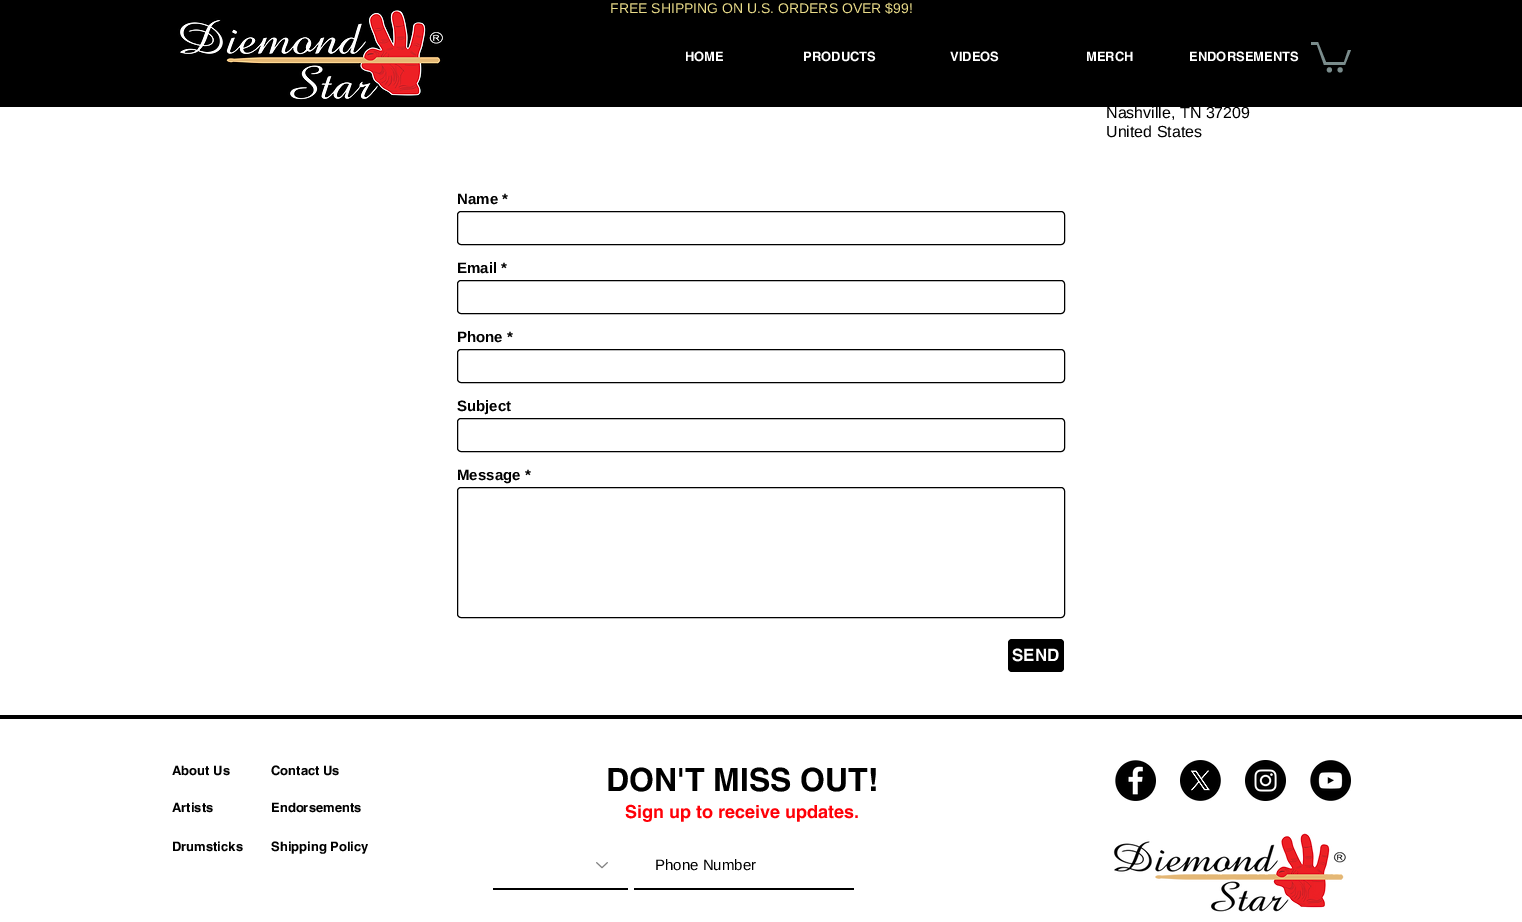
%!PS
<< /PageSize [1522 922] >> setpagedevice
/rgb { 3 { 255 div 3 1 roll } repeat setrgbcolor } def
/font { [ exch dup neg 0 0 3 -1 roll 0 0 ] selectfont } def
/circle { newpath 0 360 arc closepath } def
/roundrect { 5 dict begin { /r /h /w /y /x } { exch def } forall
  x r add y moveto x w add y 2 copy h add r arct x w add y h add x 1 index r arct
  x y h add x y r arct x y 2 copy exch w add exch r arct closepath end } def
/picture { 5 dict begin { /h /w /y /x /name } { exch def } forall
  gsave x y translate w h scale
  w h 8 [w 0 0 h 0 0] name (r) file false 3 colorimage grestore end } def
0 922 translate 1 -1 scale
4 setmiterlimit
255 255 255 rgb
0 0 1522 922 rectfill
0 0 0 rgb
0 0 1522 107 rectfill
(img/1.rgb) 178 10 267 90 picture
122 140 140 rgb
1351 50 moveto 1345 65 lineto 1324 65 lineto 1317 45 lineto 1311 45 lineto 1311 42 lineto 1318 42 lineto 1326 62 lineto 1344 62 lineto 1348 50 lineto fill
1340.1 69.9 2.6 circle fill
1329.4 69.9 2.6 circle fill
0 0 0 rgb
457.5 211.5 607 33 3.5 roundrect stroke
457.5 280.5 607 33 3.5 roundrect stroke
457.5 349.5 607 33 3.5 roundrect stroke
457.5 418.5 607 33 3.5 roundrect stroke
457.5 487.5 607 130 3.5 roundrect stroke
1008 639 56 33 4 roundrect fill
0 715 1522 4 rectfill
(img/2.rgb) 596 862 12 7 picture
493 888 135 2 rectfill
634 888 220 2 rectfill
(img/3.rgb) 1115 760 41 41 picture
(img/4.rgb) 1180 760 41 41 picture
(img/5.rgb) 1245 760 41 41 picture
(img/6.rgb) 1310 760 41 41 picture
(img/7.rgb) 1113 833 233 79 picture
/LiberationSans-Regular 14 font
233 219 137 rgb
610 13 moveto (FREE SHIPPING ON U.S. ORDERS OVER $99!) show
/helvetica-Bold 13 font
255 255 255 rgb
[
  [(HOME) 685 61]
  [(PRODUCTS) 803 61]
  [(VIDEOS) 950 61]
  [(MERCH) 1086 61]
  [(ENDORSEMENTS) 1189 61]
] { aload pop moveto show } forall
/LiberationSans-Regular 16 font
0 0 0 rgb
1106 118 moveto (Nashville, TN 37209) show
1106 137 moveto (United States) show
/LiberationSans-Bold 15 font
[
  [(Name *) 457 204]
  [(Email *) 457 273]
  [(Phone *) 457 342]
  [(Subject) 457 411]
  [(Message *) 457 480]
] { aload pop moveto show } forall
/helvetica-Bold 17 font
255 255 255 rgb
1012 661 moveto (SEND) show
/helvetica-Bold 13 font
0 0 0 rgb
172 775 moveto (About Us) show
271 775 moveto (Contact Us) show
/helvetica-Bold 32 font
606 791 moveto (DON'T MISS OUT!) show
/helvetica-Bold 18 font
255 0 7 rgb
625 818 moveto (Sign up to receive updates.) show
/LiberationSans-Regular 15 font
0 0 0 rgb
655 870 moveto (Phone Number) show
/helvetica-Bold 13 font
[
  [(Artists) 172 812]
  [(Endorsements) 271 812]
  [(Drumsticks) 172 851]
  [(Shipping Policy) 271 851]
] { aload pop moveto show } forall
showpage
